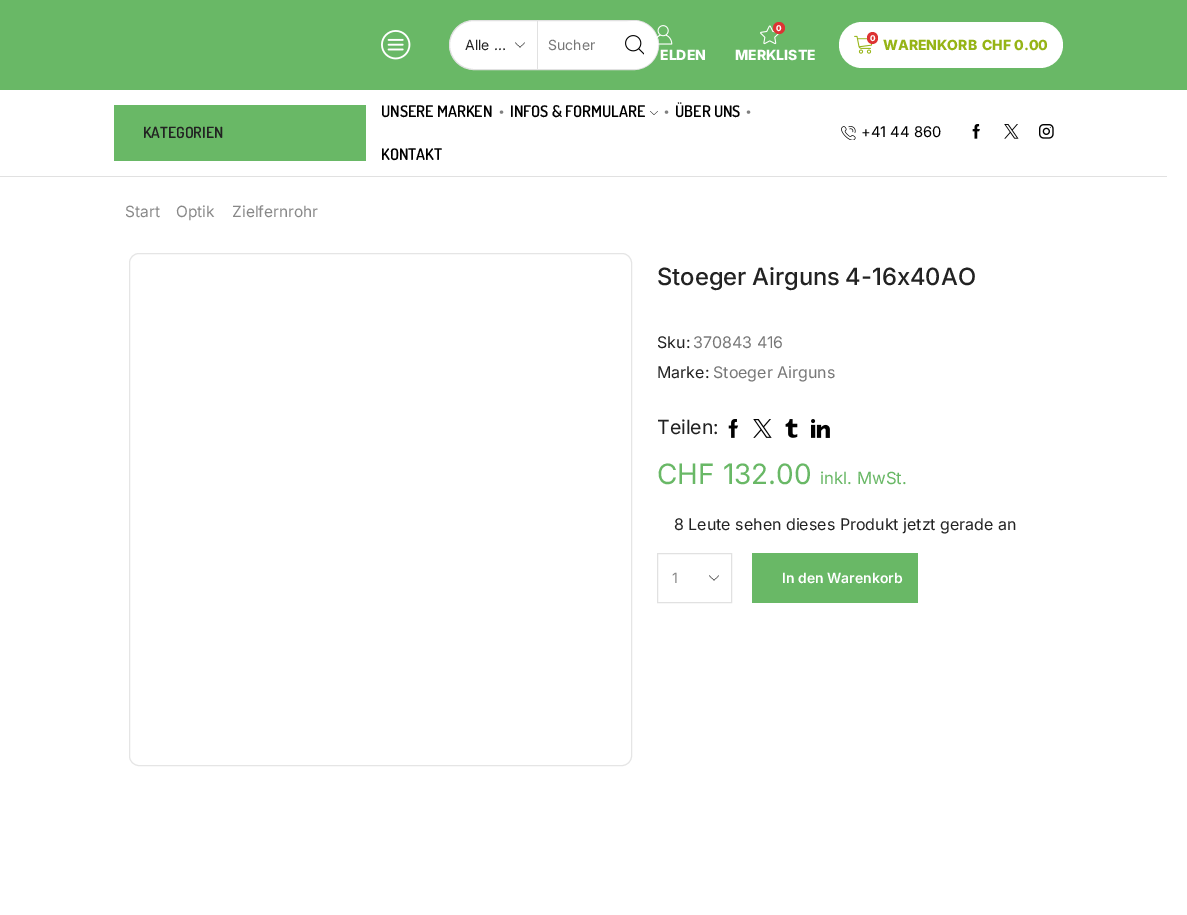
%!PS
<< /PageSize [1187 915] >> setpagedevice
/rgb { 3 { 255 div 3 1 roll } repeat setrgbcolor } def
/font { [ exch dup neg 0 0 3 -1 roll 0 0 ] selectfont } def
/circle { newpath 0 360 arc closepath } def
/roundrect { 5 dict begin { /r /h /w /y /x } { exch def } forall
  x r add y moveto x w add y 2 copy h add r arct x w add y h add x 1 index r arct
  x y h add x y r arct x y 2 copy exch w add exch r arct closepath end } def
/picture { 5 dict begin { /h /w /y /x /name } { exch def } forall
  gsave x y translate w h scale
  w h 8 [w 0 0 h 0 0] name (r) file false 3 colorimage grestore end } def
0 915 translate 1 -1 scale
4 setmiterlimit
255 255 255 rgb
0 0 1187 915 rectfill
105 184 102 rgb
0 0 1187 90 rectfill
(img/1.rgb) 381 30 30 30 picture
255 255 255 rgb
449.5 20.5 209 49 24.5 roundrect gsave fill grestore
225 225 225 rgb
stroke
(img/2.rgb) 515 42 10 6 picture
537 21 1 48 rectfill
255 255 255 rgb
634 45 24 circle fill
(img/3.rgb) 625 35 19 20 picture
(img/4.rgb) 760 25 20 20 picture
221 51 51 rgb
779 28 6 circle fill
255 255 255 rgb
839 22 224 46 23 roundrect fill
(img/5.rgb) 854 35 19 19 picture
221 51 51 rgb
867 32 11 12 5.5 roundrect fill
(img/6.rgb) 657 25 16 20 picture
225 225 225 rgb
0 176 1167 1 rectfill
105 184 102 rgb
114 105 252 56 rectfill
(img/7.rgb) 650 111 8 4 picture
(img/8.rgb) 841 126 15 14 picture
(img/9.rgb) 972 124 8 15 picture
(img/10.rgb) 1004 124 15 15 picture
(img/11.rgb) 1039 124 15 15 picture
229 229 229 rgb
129.5 253.5 502 512 9.5 roundrect stroke
(img/12.rgb) 728 419 11 19 picture
(img/13.rgb) 753 419 19 19 picture
(img/14.rgb) 785 419 13 19 picture
(img/15.rgb) 811 419 19 19 picture
(img/16.rgb) 709 575 10 6 picture
225 225 225 rgb
657.5 553.5 74 49 rectstroke
105 184 102 rgb
752 553 166 50 rectfill
/Inter-Regular 14 font
34 34 34 rgb
465 50 moveto (Alle …) show
gsave
548 36 47 17 rectclip
119 119 119 rgb
548 50 moveto (Suchen) show
grestore
/Inter-ExtraBold 8 font
255 255 255 rgb
776 31 moveto (0) show
/Inter-ExtraBold 14 font
735 60 moveto (MERKLISTE) show
/Inter-ExtraBold 8 font
870 41 moveto (0) show
/Inter-ExtraBold 14 font
150 180 22 rgb
883 50 moveto (WARENKORB) show
982 50 moveto (CHF 0.00) show
255 255 255 rgb
660 60 moveto (ELDEN) show
/Dosis-SemiBold 15.5 font
34 34 34 rgb
143 138 moveto (KATEGORIEN) show
/Dosis-SemiBold 16 font
0 0 0 rgb
381 117 moveto (UNSERE MARKEN) show
/LiberationSerif-Regular 14.75 font
128 128 128 rgb
499 117 moveto (•) show
/Dosis-SemiBold 16 font
0 0 0 rgb
510 117 moveto (INFOS & FORMULARE) show
/LiberationSerif-Regular 14.75 font
128 128 128 rgb
664 117 moveto (•) show
/Dosis-SemiBold 16 font
0 0 0 rgb
675 117 moveto (ÜBER UNS) show
/LiberationSerif-Regular 14.75 font
128 128 128 rgb
746 117 moveto (•) show
/Dosis-SemiBold 16 font
0 0 0 rgb
381 160 moveto (KONTAKT) show
/Inter-Regular 14.75 font
861 137 moveto (+41 44 860) show
/Inter-Regular 15.5 font
136 136 136 rgb
[
  [(Start) 125 217]
  [(Optik) 176 217]
  [(Zielfernrohr) 232 217]
] { aload pop moveto show } forall
/Inter-Medium 23.75 font
34 34 34 rgb
657 285 moveto -1 0 32 (Stoeger Airguns 4-16x40AO) widthshow
/Inter-Regular 16 font
657 348 moveto (Sku:) show
119 119 119 rgb
693 348 moveto (370843 416) show
34 34 34 rgb
657 378 moveto (Marke:) show
119 119 119 rgb
713 378 moveto (Stoeger Airguns) show
/Inter-Regular 19.5 font
34 34 34 rgb
657 434 moveto (Teilen:) show
/Inter-Regular 28 font
105 184 102 rgb
657 484 moveto (CHF 132.00) show
/Inter-Regular 16.75 font
820 484 moveto (inkl. MwSt.) show
/Inter-Regular 16 font
34 34 34 rgb
674 530 moveto (8 Leute sehen dieses Produkt jetzt gerade an) show
/Inter-Regular 14 font
136 136 136 rgb
672 583 moveto (1) show
/Inter-SemiBold 14 font
255 255 255 rgb
782 583 moveto (In den Warenkorb) show
showpage
